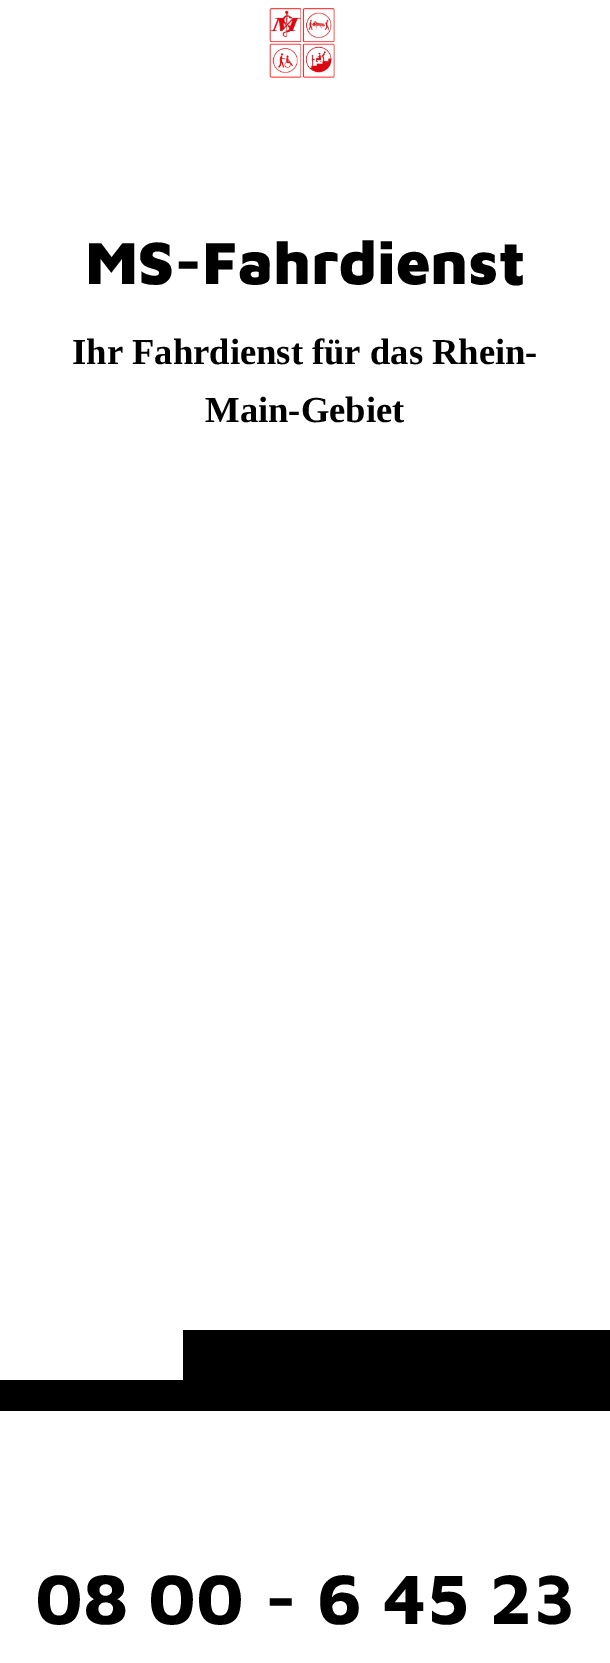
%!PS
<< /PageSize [610 1663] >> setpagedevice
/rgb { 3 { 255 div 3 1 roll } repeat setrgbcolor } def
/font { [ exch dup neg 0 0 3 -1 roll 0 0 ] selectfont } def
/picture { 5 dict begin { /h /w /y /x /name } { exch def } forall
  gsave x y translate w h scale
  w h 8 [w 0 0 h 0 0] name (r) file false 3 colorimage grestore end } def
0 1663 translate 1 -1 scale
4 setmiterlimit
255 255 255 rgb
0 0 610 1663 rectfill
(img/1.rgb) 269 8 66 70 picture
0 0 0 rgb
0 1380 183 31 rectfill
183 1330 427 81 rectfill
/MavenPro-Black 61 font
85 284 moveto (MS-Fahrdienst) show
/LiberationSerif-Bold 36.6 font
72 364 moveto (Ihr Fahrdienst für das Rhein-) show
205 422 moveto (Main-Gebiet) show
/MavenPro-Bold 72 font
35 1624 moveto (08 00 - 6 45 23) show
showpage
